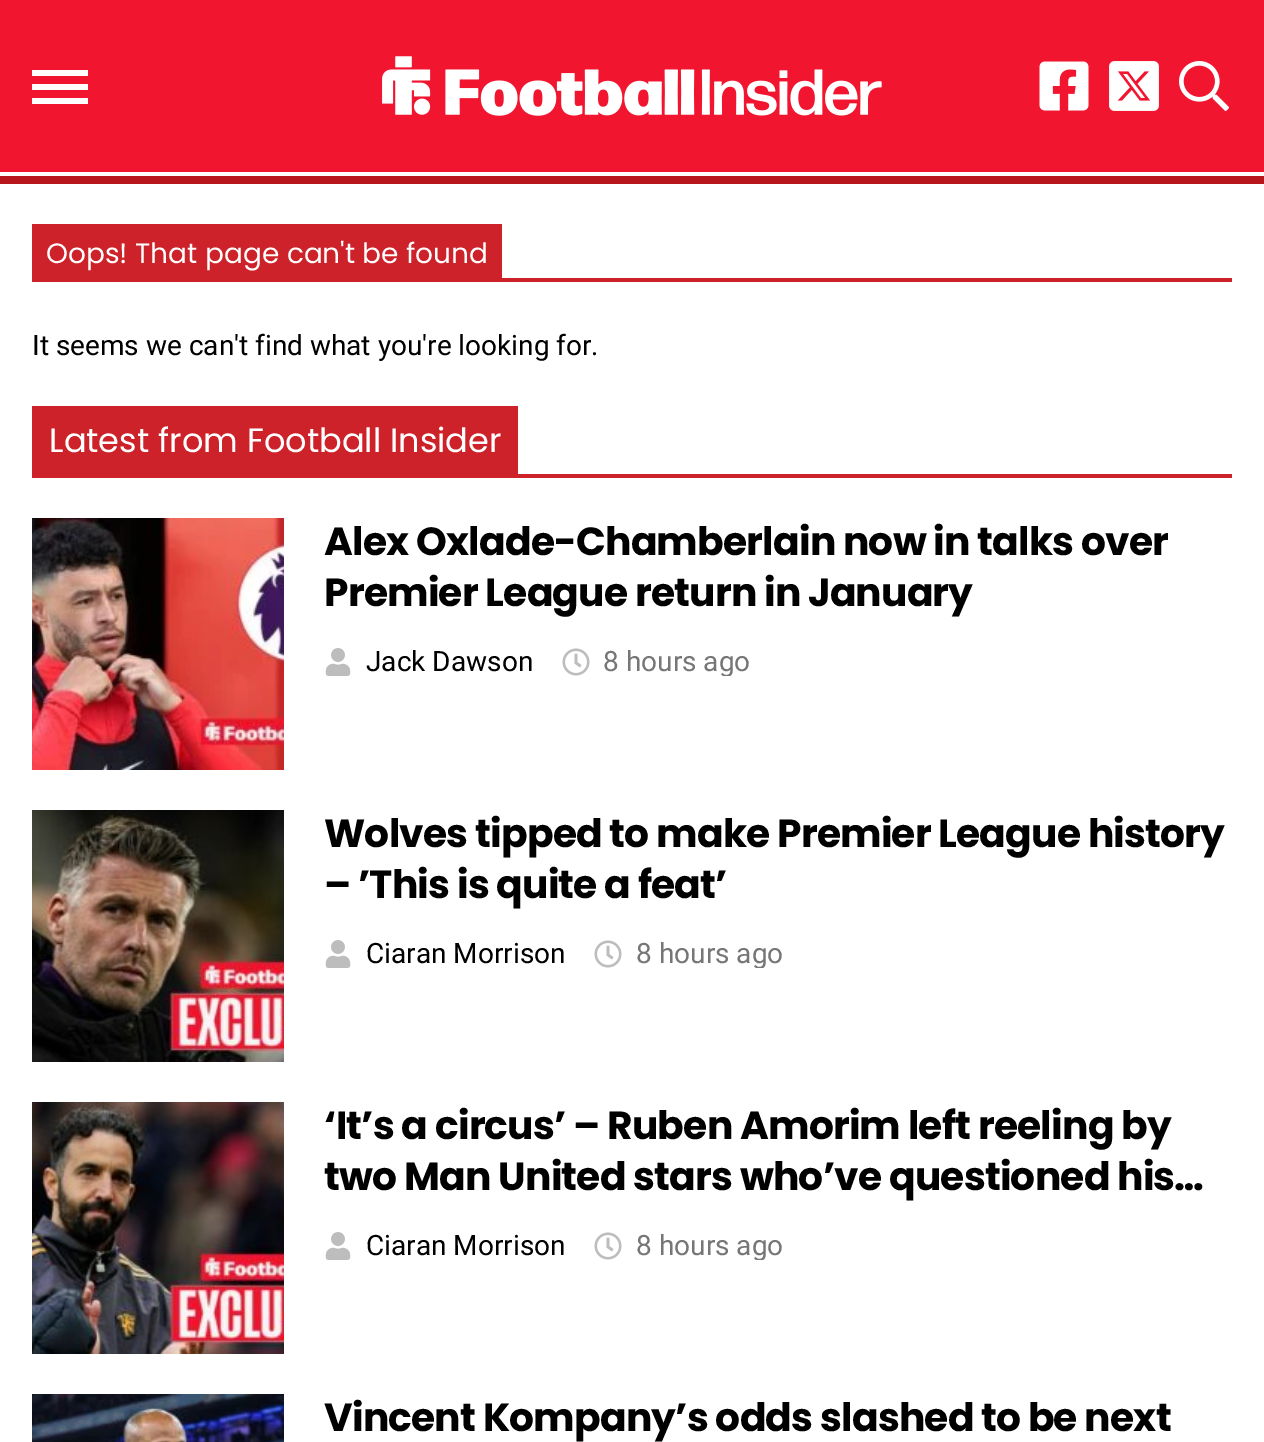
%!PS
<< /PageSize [1264 1442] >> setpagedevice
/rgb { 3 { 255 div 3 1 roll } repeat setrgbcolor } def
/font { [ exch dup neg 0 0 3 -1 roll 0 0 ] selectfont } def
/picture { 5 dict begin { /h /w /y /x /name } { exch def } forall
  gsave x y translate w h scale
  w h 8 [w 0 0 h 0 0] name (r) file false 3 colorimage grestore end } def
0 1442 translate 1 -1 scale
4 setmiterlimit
241 21 47 rgb
0 0 1264 1442 rectfill
[
  [0 176 1264 8 182 22 28]
  [32 70 56 6 255 255 255]
  [32 84 56 6 255 255 255]
  [32 98 56 6 255 255 255]
] { aload pop rgb rectfill } forall
(img/1.rgb) 382 56 500 60 picture
(img/2.rgb) 1039 61 50 50 picture
(img/3.rgb) 1109 61 50 50 picture
(img/4.rgb) 1179 61 50 50 picture
[
  [0 172 1264 4 255 255 255]
  [0 184 1264 1258 255 255 255]
  [32 224 470 58 205 34 41]
  [502 278 730 4 205 34 41]
  [32 406 486 72 205 34 41]
  [518 474 714 4 205 34 41]
] { aload pop rgb rectfill } forall
(img/5.rgb) 32 518 252 252 picture
(img/6.rgb) 325 648 26 28 picture
(img/7.rgb) 562 648 28 28 picture
(img/8.rgb) 32 810 252 252 picture
(img/6.rgb) 325 940 26 28 picture
(img/7.rgb) 594 940 28 28 picture
(img/9.rgb) 32 1102 252 252 picture
(img/6.rgb) 325 1232 26 28 picture
(img/7.rgb) 594 1232 28 28 picture
(img/10.rgb) 32 1394 252 48 picture
/Poppins-Regular 28 font
255 255 255 rgb
46 263 moveto (Oops! That page can't be found) show
/Roboto-Regular 28 font
0 0 0 rgb
32 355 moveto (It seems we can't find what you're looking for.) show
/Poppins-Regular 33.6 font
255 255 255 rgb
49 452 moveto (Latest from Football Insider) show
/Poppins-Bold 39.2 font
0 0 0 rgb
324 555 moveto -0.8 0 (Alex Oxlade-Chamberlain now in talks over) ashow
324 606 moveto -0.8 0 (Premier League return in January) ashow
/Roboto-Regular 28 font
366 671 moveto (Jack Dawson) show
gsave
604 648 146 28 rectclip
118 118 118 rgb
603 671 moveto (8 hours ago) show
grestore
/Poppins-Bold 39.2 font
324 847 moveto -0.8 0 (Wolves tipped to make Premier League history) ashow
324 898 moveto -0.8 0 (– ’This is quite a feat’) ashow
/Roboto-Regular 28 font
366 963 moveto (Ciaran Morrison) show
gsave
636 940 146 28 rectclip
118 118 118 rgb
636 963 moveto (8 hours ago) show
grestore
/Poppins-Bold 39.2 font
324 1139 moveto -0.8 0 (‘It’s a circus’ – Ruben Amorim left reeling by) ashow
324 1190 moveto -0.8 0 (two Man United stars who’ve questioned his…) ashow
/Roboto-Regular 28 font
366 1255 moveto (Ciaran Morrison) show
gsave
636 1232 146 28 rectclip
118 118 118 rgb
636 1255 moveto (8 hours ago) show
grestore
/Poppins-Bold 39.2 font
324 1431 moveto -0.8 0 (Vincent Kompany’s odds slashed to be next) ashow
showpage
